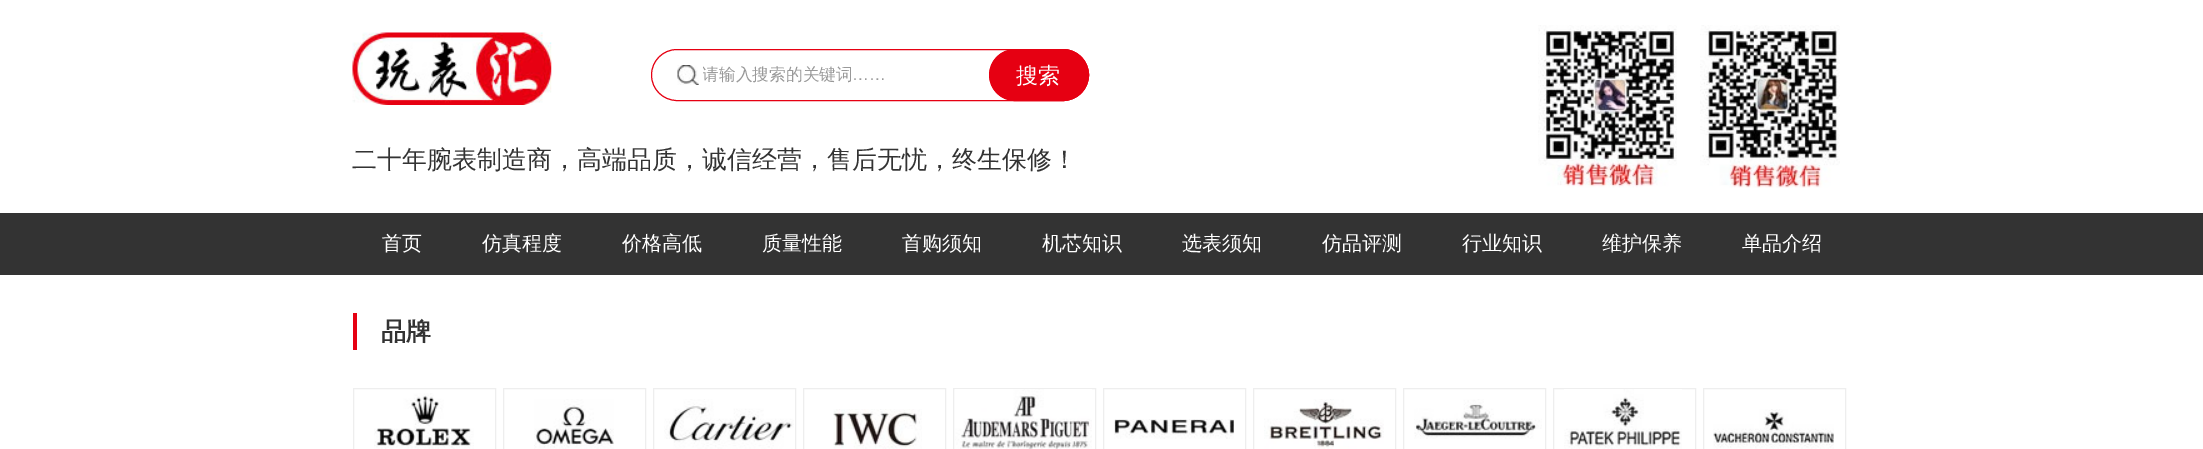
%!PS
<< /PageSize [2203 449] >> setpagedevice
/rgb { 3 { 255 div 3 1 roll } repeat setrgbcolor } def
/font { [ exch dup neg 0 0 3 -1 roll 0 0 ] selectfont } def
/roundrect { 5 dict begin { /r /h /w /y /x } { exch def } forall
  x r add y moveto x w add y 2 copy h add r arct x w add y h add x 1 index r arct
  x y h add x y r arct x y 2 copy exch w add exch r arct closepath end } def
/picture { 5 dict begin { /h /w /y /x /name } { exch def } forall
  gsave x y translate w h scale
  w h 8 [w 0 0 h 0 0] name (r) file false 3 colorimage grestore end } def
0 449 translate 1 -1 scale
4 setmiterlimit
255 255 255 rgb
0 0 2203 449 rectfill
(img/1.rgb) 352 32 200 73 picture
(img/2.rgb) 677 65 22 20 picture
230 0 18 rgb
651.5 49.5 437 51 25.5 roundrect stroke
989.5 49.5 99 51 25.5 roundrect gsave fill grestore
stroke
(img/3.rgb) 1538 25 139 163 picture
(img/4.rgb) 1700 25 140 163 picture
51 51 51 rgb
0 213 2203 62 rectfill
230 0 18 rgb
353 313 4 37 rectfill
238 238 238 rgb
353.5 388.5 142 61 rectstroke
(img/5.rgb) 374 393 100 56 picture
503.5 388.5 142 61 rectstroke
(img/6.rgb) 534 399 80 50 picture
653.5 388.5 142 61 rectstroke
(img/7.rgb) 664 399 130 50 picture
803.5 388.5 142 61 rectstroke
(img/8.rgb) 833 409 89 40 picture
953.5 388.5 142 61 rectstroke
(img/9.rgb) 955 389 137 60 picture
1103.5 388.5 142 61 rectstroke
(img/10.rgb) 1114 419 120 20 picture
1253.5 388.5 142 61 rectstroke
(img/11.rgb) 1264 399 120 50 picture
1403.5 388.5 142 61 rectstroke
(img/12.rgb) 1414 399 128 40 picture
1553.5 388.5 142 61 rectstroke
(img/13.rgb) 1564 389 118 60 picture
1703.5 388.5 142 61 rectstroke
(img/14.rgb) 1713 409 121 40 picture
gsave
703 50 385 50 rectclip
/WenQuanYiZenHei-Medium 16.75 font
153 153 153 rgb
702 80 moveto (请输入搜索的关键词) show
grestore
/LiberationSans-Regular 16.75 font
153 153 153 rgb
852 80 moveto (……) show
/WenQuanYiZenHei-Medium 22 font
255 255 255 rgb
1016 83 moveto (搜索) show
/WenQuanYiZenHei-Medium 25 font
51 51 51 rgb
352 168 moveto (二十年腕表制造商，高端品质，诚信经营，售后无忧，终生保修！) show
/WenQuanYiZenHei-Medium 20 font
255 255 255 rgb
[
  [(首页) 382 250]
  [(仿真程度) 482 250]
  [(价格高低) 622 250]
  [(质量性能) 762 250]
  [(首购须知) 902 250]
  [(机芯知识) 1042 250]
  [(选表须知) 1182 250]
  [(仿品评测) 1322 250]
  [(行业知识) 1462 250]
  [(维护保养) 1602 250]
  [(单品介绍) 1742 250]
] { aload pop moveto show } forall
/WenQuanYiZenHei-Bold 25 font
51 51 51 rgb
381 340 moveto (品牌) show
showpage
